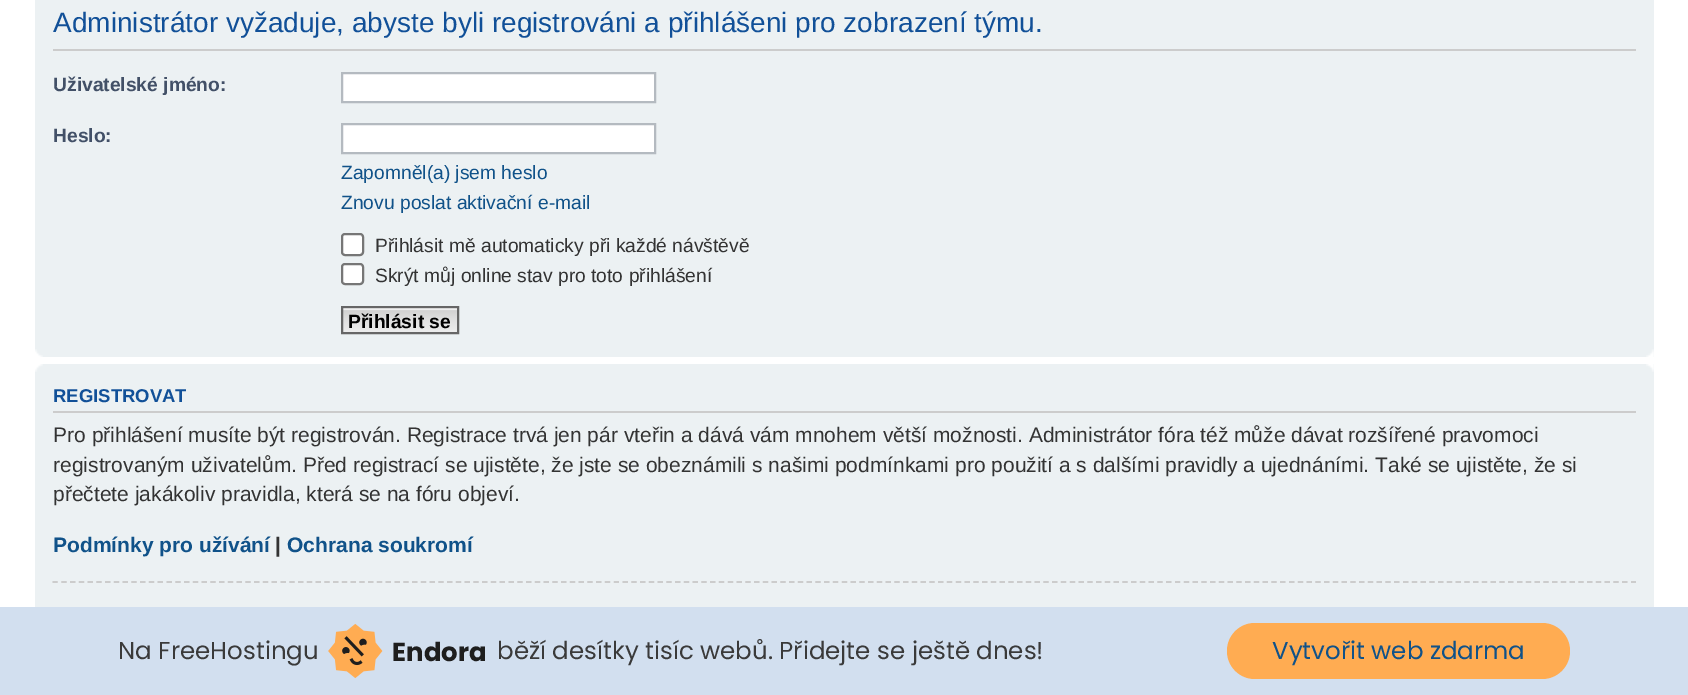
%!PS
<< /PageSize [1688 695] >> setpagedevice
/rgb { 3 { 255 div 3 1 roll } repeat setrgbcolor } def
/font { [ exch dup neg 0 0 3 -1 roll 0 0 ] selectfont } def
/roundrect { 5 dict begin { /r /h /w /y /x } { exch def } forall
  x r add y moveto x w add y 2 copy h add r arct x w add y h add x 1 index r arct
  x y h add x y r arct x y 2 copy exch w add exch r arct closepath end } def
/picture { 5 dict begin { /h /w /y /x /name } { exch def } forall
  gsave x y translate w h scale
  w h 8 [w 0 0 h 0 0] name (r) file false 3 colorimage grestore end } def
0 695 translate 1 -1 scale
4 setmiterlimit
255 255 255 rgb
0 0 1688 695 rectfill
236 241 243 rgb
35 0 1619 357 rectfill
204 204 204 rgb
53 49 1583 2 rectfill
255 255 255 rgb
342 73 moveto 655 73 lineto 655 102 lineto 342 102 lineto closepath gsave fill grestore
180 186 192 rgb
2 setlinewidth
stroke
255 255 255 rgb
342 124 moveto 655 124 lineto 655 153 lineto 342 153 lineto closepath gsave fill grestore
180 186 192 rgb
stroke
255 255 255 rgb
342 234 21 21 3 roundrect gsave fill grestore
118 118 118 rgb
stroke
255 255 255 rgb
342 264 21 20 3 roundrect gsave fill grestore
118 118 118 rgb
stroke
(img/1.rgb) 343 308 114 24 picture
102 102 102 rgb
342 307 116 26 rectstroke
(img/2.rgb) 35 349 8 8 picture
(img/3.rgb) 1646 349 8 8 picture
236 241 243 rgb
35 364 1619 243 rectfill
(img/4.rgb) 35 364 8 8 picture
(img/5.rgb) 1646 364 8 8 picture
204 204 204 rgb
53 411 1583 2 rectfill
1.8 setlinewidth
[5.25 3.52] 0 setdash
52.5 582 moveto 1636 582 lineto stroke
210 223 239 rgb
0 607 1688 88 rectfill
(img/6.rgb) 328 623 55 56 picture
255 172 82 rgb
1227 623 343 56 28 roundrect fill
/LiberationSans-Regular 28 font
17 80 152 rgb
53 32 moveto (Administrátor vyžaduje, abyste byli registrováni a přihlášeni pro zobrazení týmu.) show
/LiberationSans-Bold 19.25 font
66 80 103 rgb
53 91 moveto (Uživatelské jméno:) show
53 142 moveto (Heslo:) show
/LiberationSans-Regular 19.25 font
16 82 137 rgb
341 179 moveto (Zapomněl\(a\) jsem heslo) show
341 209 moveto (Znovu poslat aktivační e-mail) show
51 51 51 rgb
375 252 moveto (Přihlásit mě automaticky při každé návštěvě) show
375 282 moveto (Skrýt můj online stav pro toto přihlášení) show
/LiberationSans-Bold 19.25 font
0 0 0 rgb
348 328 moveto (Přihlásit se) show
/LiberationSans-Bold 18.5 font
17 80 152 rgb
53 402 moveto (REGISTROVAT) show
/LiberationSans-Regular 21 font
51 51 51 rgb
[
  [(Pro přihlášení musíte být registrován. Registrace trvá jen pár vteřin a dává vám mnohem větší možnosti. Administrátor fóra též může dávat rozšířené pravomoci) 53 442]
  [(registrovaným uživatelům. Před registrací se ujistěte, že jste se obeznámili s našimi podmínkami pro použití a s dalšími pravidly a ujednáními. Také se ujistěte, že si) 53 472]
  [(přečtete jakákoliv pravidla, která se na fóru objeví.) 53 501]
] { aload pop moveto show } forall
/LiberationSans-Bold 21 font
16 82 137 rgb
53 552 moveto (Podmínky pro užívání) show
51 51 51 rgb
275 552 moveto (|) show
16 82 137 rgb
287 552 moveto (Ochrana soukromí) show
/Poppins-Regular 24.5 font
58 58 58 rgb
118 659 moveto (Na FreeHostingu) show
/Poppins-Bold 26 font
30 30 30 rgb
392 661 moveto (Endora) show
/Poppins-Regular 24.5 font
58 58 58 rgb
497 659 moveto (běží desítky tisíc webů. Přidejte se ještě dnes!) show
16 82 137 rgb
1272 659 moveto (Vytvořit web zdarma) show
showpage
